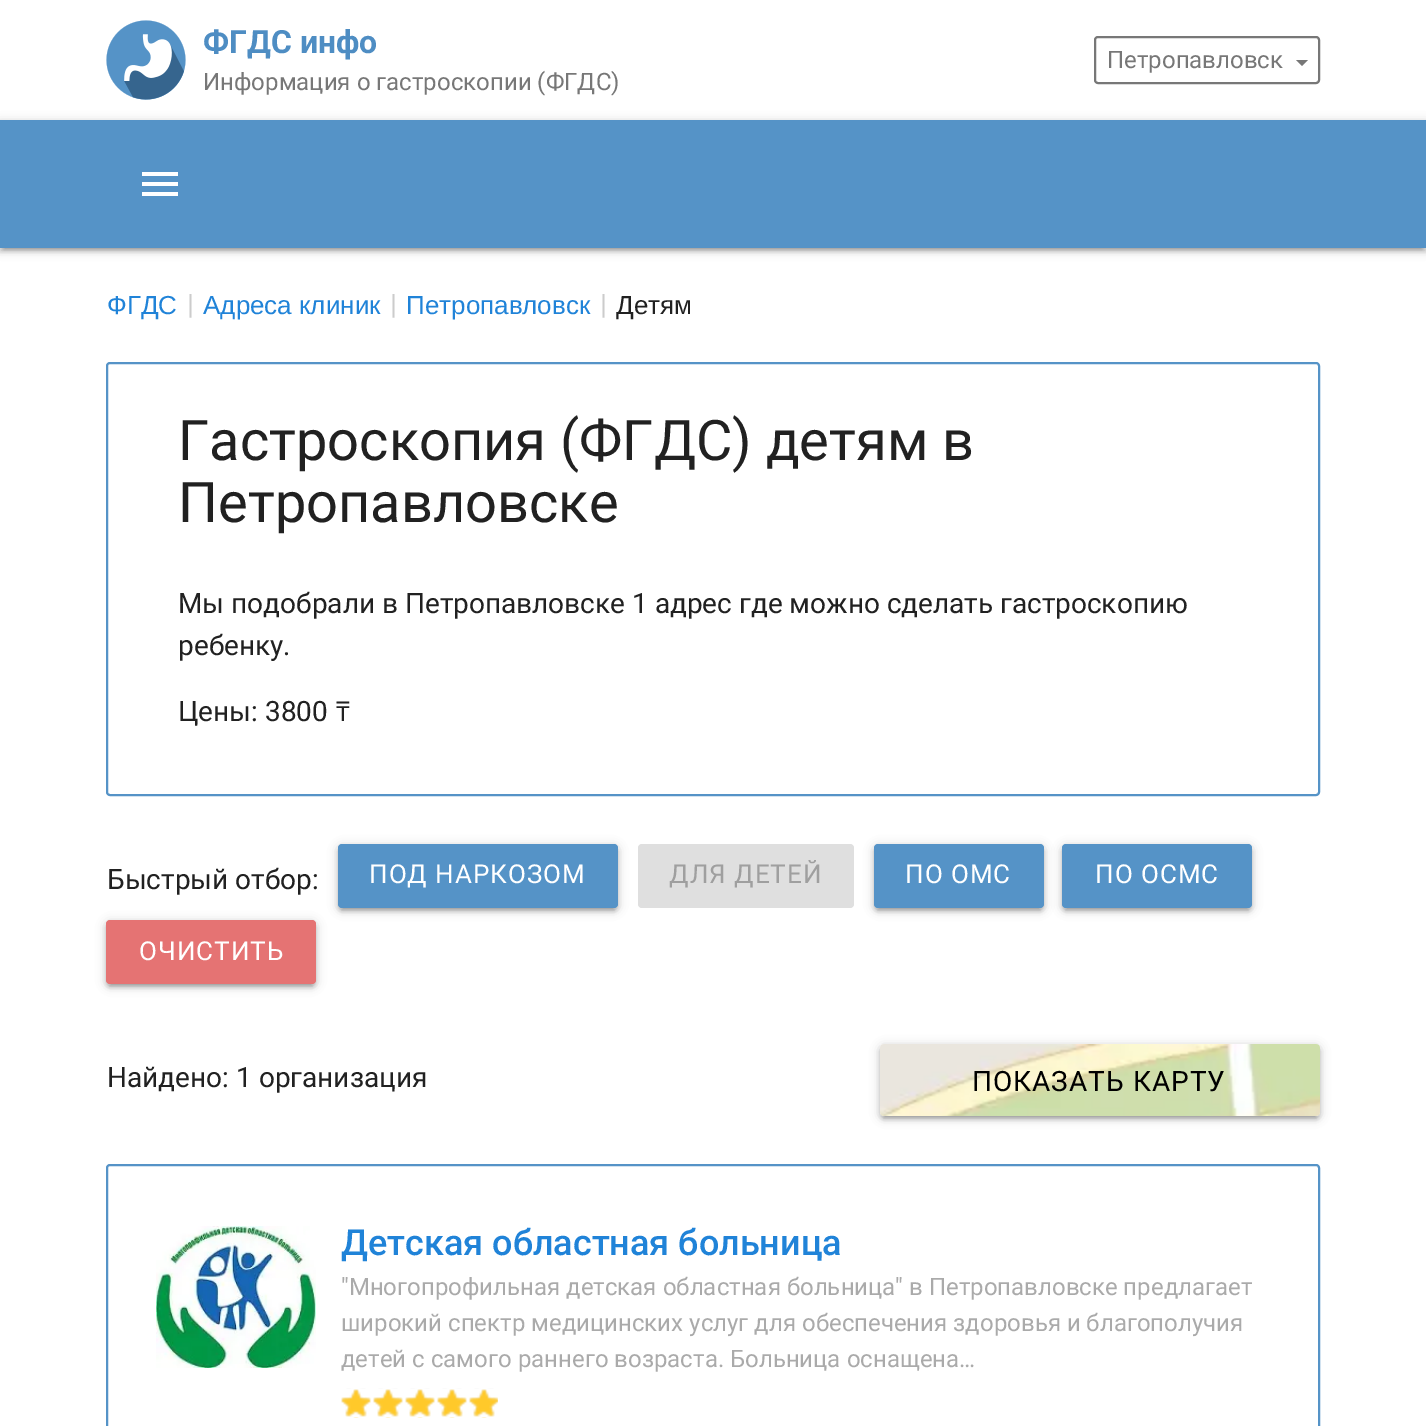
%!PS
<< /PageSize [1426 1426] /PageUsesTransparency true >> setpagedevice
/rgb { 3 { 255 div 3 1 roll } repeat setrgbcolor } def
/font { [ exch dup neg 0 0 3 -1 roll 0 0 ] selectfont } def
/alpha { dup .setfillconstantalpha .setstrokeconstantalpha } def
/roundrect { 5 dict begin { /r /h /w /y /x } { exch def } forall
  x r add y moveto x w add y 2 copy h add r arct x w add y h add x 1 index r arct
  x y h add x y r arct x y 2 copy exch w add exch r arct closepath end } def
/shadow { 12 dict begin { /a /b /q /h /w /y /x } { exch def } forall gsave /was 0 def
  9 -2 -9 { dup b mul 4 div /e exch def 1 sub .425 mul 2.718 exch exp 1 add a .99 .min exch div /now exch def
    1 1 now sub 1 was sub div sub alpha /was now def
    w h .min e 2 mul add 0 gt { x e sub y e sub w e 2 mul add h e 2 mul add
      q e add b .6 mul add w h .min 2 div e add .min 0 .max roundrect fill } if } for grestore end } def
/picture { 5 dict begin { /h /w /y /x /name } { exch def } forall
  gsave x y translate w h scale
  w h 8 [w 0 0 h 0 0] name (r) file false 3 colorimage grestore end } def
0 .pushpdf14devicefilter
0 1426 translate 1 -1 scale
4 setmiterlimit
255 255 255 rgb
0 0 1426 1426 rectfill
(img/1.rgb) 106 20 80 80 picture
119 119 119 rgb
2 setlinewidth
1095 37 224 46 3 roundrect stroke
1296 60 moveto 1308 60 lineto 1302 66 lineto closepath fill
0 0 0 rgb
0 122 1426 128 0 5 0.2 shadow
4 130 1418 120 0 1 0.12 shadow
0 124 1426 128 0 2 0.14 shadow
[
  [0 120 1426 128 85 147 199]
  [142 172 36 4 255 255 255]
  [142 182 36 4 255 255 255]
  [142 192 36 4 255 255 255]
] { aload pop rgb rectfill } forall
85 147 199 rgb
107 363 1212 432 3 roundrect stroke
0 0 0 rgb
338 846 280 64 4 5 0.2 shadow
342 854 272 56 0 1 0.12 shadow
338 848 280 64 4 2 0.14 shadow
85 147 199 rgb
338 844 280 64 4 roundrect fill
223 223 223 rgb
638 844 216 64 4 roundrect fill
0 0 0 rgb
874 846 170 64 4 5 0.2 shadow
878 854 162 56 0 1 0.12 shadow
874 848 170 64 4 2 0.14 shadow
85 147 199 rgb
874 844 170 64 4 roundrect fill
0 0 0 rgb
1062 846 190 64 4 5 0.2 shadow
1066 854 182 56 0 1 0.12 shadow
1062 848 190 64 4 2 0.14 shadow
85 147 199 rgb
1062 844 190 64 4 roundrect fill
0 0 0 rgb
106 922 210 64 4 5 0.2 shadow
110 930 202 56 0 1 0.12 shadow
106 924 210 64 4 2 0.14 shadow
229 115 115 rgb
106 920 210 64 4 roundrect fill
0 0 0 rgb
880 1046 440 72 4 5 0.2 shadow
884 1054 432 64 0 1 0.12 shadow
880 1048 440 72 4 2 0.14 shadow
(img/2.rgb) 880 1044 440 72 picture
85 147 199 rgb
107 1165 1212 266 3 roundrect stroke
(img/3.rgb) 156 1226 160 142 picture
(img/5.rgb) 341 1389 157 29 picture
(img/4.rgb) 341 1388 157 29 picture
/Roboto-Bold 32 font
78 141 195 rgb
203 53 moveto (ФГДС инфо) show
/Roboto-Regular 24 font
119 119 119 rgb
203 90 moveto (Информация о гастроскопии \(ФГДС\)) show
1107 68 moveto (Петропавловск) show
/LiberationSans-Regular 26 font
32 131 216 rgb
107 314 moveto (ФГДС) show
/Roboto-Regular 28 font
204 204 204 rgb
187 314 moveto (|) show
/LiberationSans-Regular 26 font
32 131 216 rgb
203 314 moveto (Адреса клиник) show
/Roboto-Regular 28 font
204 204 204 rgb
390 314 moveto (|) show
/LiberationSans-Regular 26 font
32 131 216 rgb
406 314 moveto (Петропавловск) show
/Roboto-Regular 28 font
204 204 204 rgb
600 314 moveto (|) show
/LiberationSans-Regular 26 font
33 33 33 rgb
616 314 moveto (Детям) show
/Roboto-Regular 56 font
178 460 moveto (Гастроскопия \(ФГДС\) детям в) show
178 522 moveto (Петропавловске) show
/Roboto-Regular 28 font
[
  [(Мы подобрали в Петропавловске 1 адрес где можно сделать гастроскопию) 178 613]
  [(ребенку.) 178 655]
  [(Цены: 3800) 178 721]
] { aload pop moveto show } forall
/Ubuntu-Regular 28 font
335 721 moveto (₸) show
/Roboto-Regular 28 font
107 889 moveto (Быстрый отбор:) show
/Roboto-Regular 26 font
255 255 255 rgb
369 883 moveto 1 0 (ПОД НАРКОЗОМ) ashow
159 159 159 rgb
669 883 moveto 1 0 (ДЛЯ ДЕТЕЙ) ashow
255 255 255 rgb
905 883 moveto 1 0 (ПО ОМС) ashow
1095 883 moveto 1 0 (ПО ОСМС) ashow
139 960 moveto 1 0 (ОЧИСТИТЬ) ashow
/Roboto-Regular 28 font
33 33 33 rgb
107 1087 moveto (Найдено: 1 организация) show
0 0 0 rgb
972 1091 moveto 1 0 (ПОКАЗАТЬ КАРТУ) ashow
/Roboto-Medium 36 font
32 131 216 rgb
341 1255 moveto (Детская областная больница) show
/Roboto-Regular 24 font
170 170 170 rgb
[
  [("Многопрофильная детская областная больница" в Петропавловске предлагает) 341 1295]
  [(широкий спектр медицинских услуг для обеспечения здоровья и благополучия) 341 1331]
  [(детей с самого раннего возраста. Больница оснащена…) 341 1367]
] { aload pop moveto show } forall
.poppdf14devicefilter showpage
